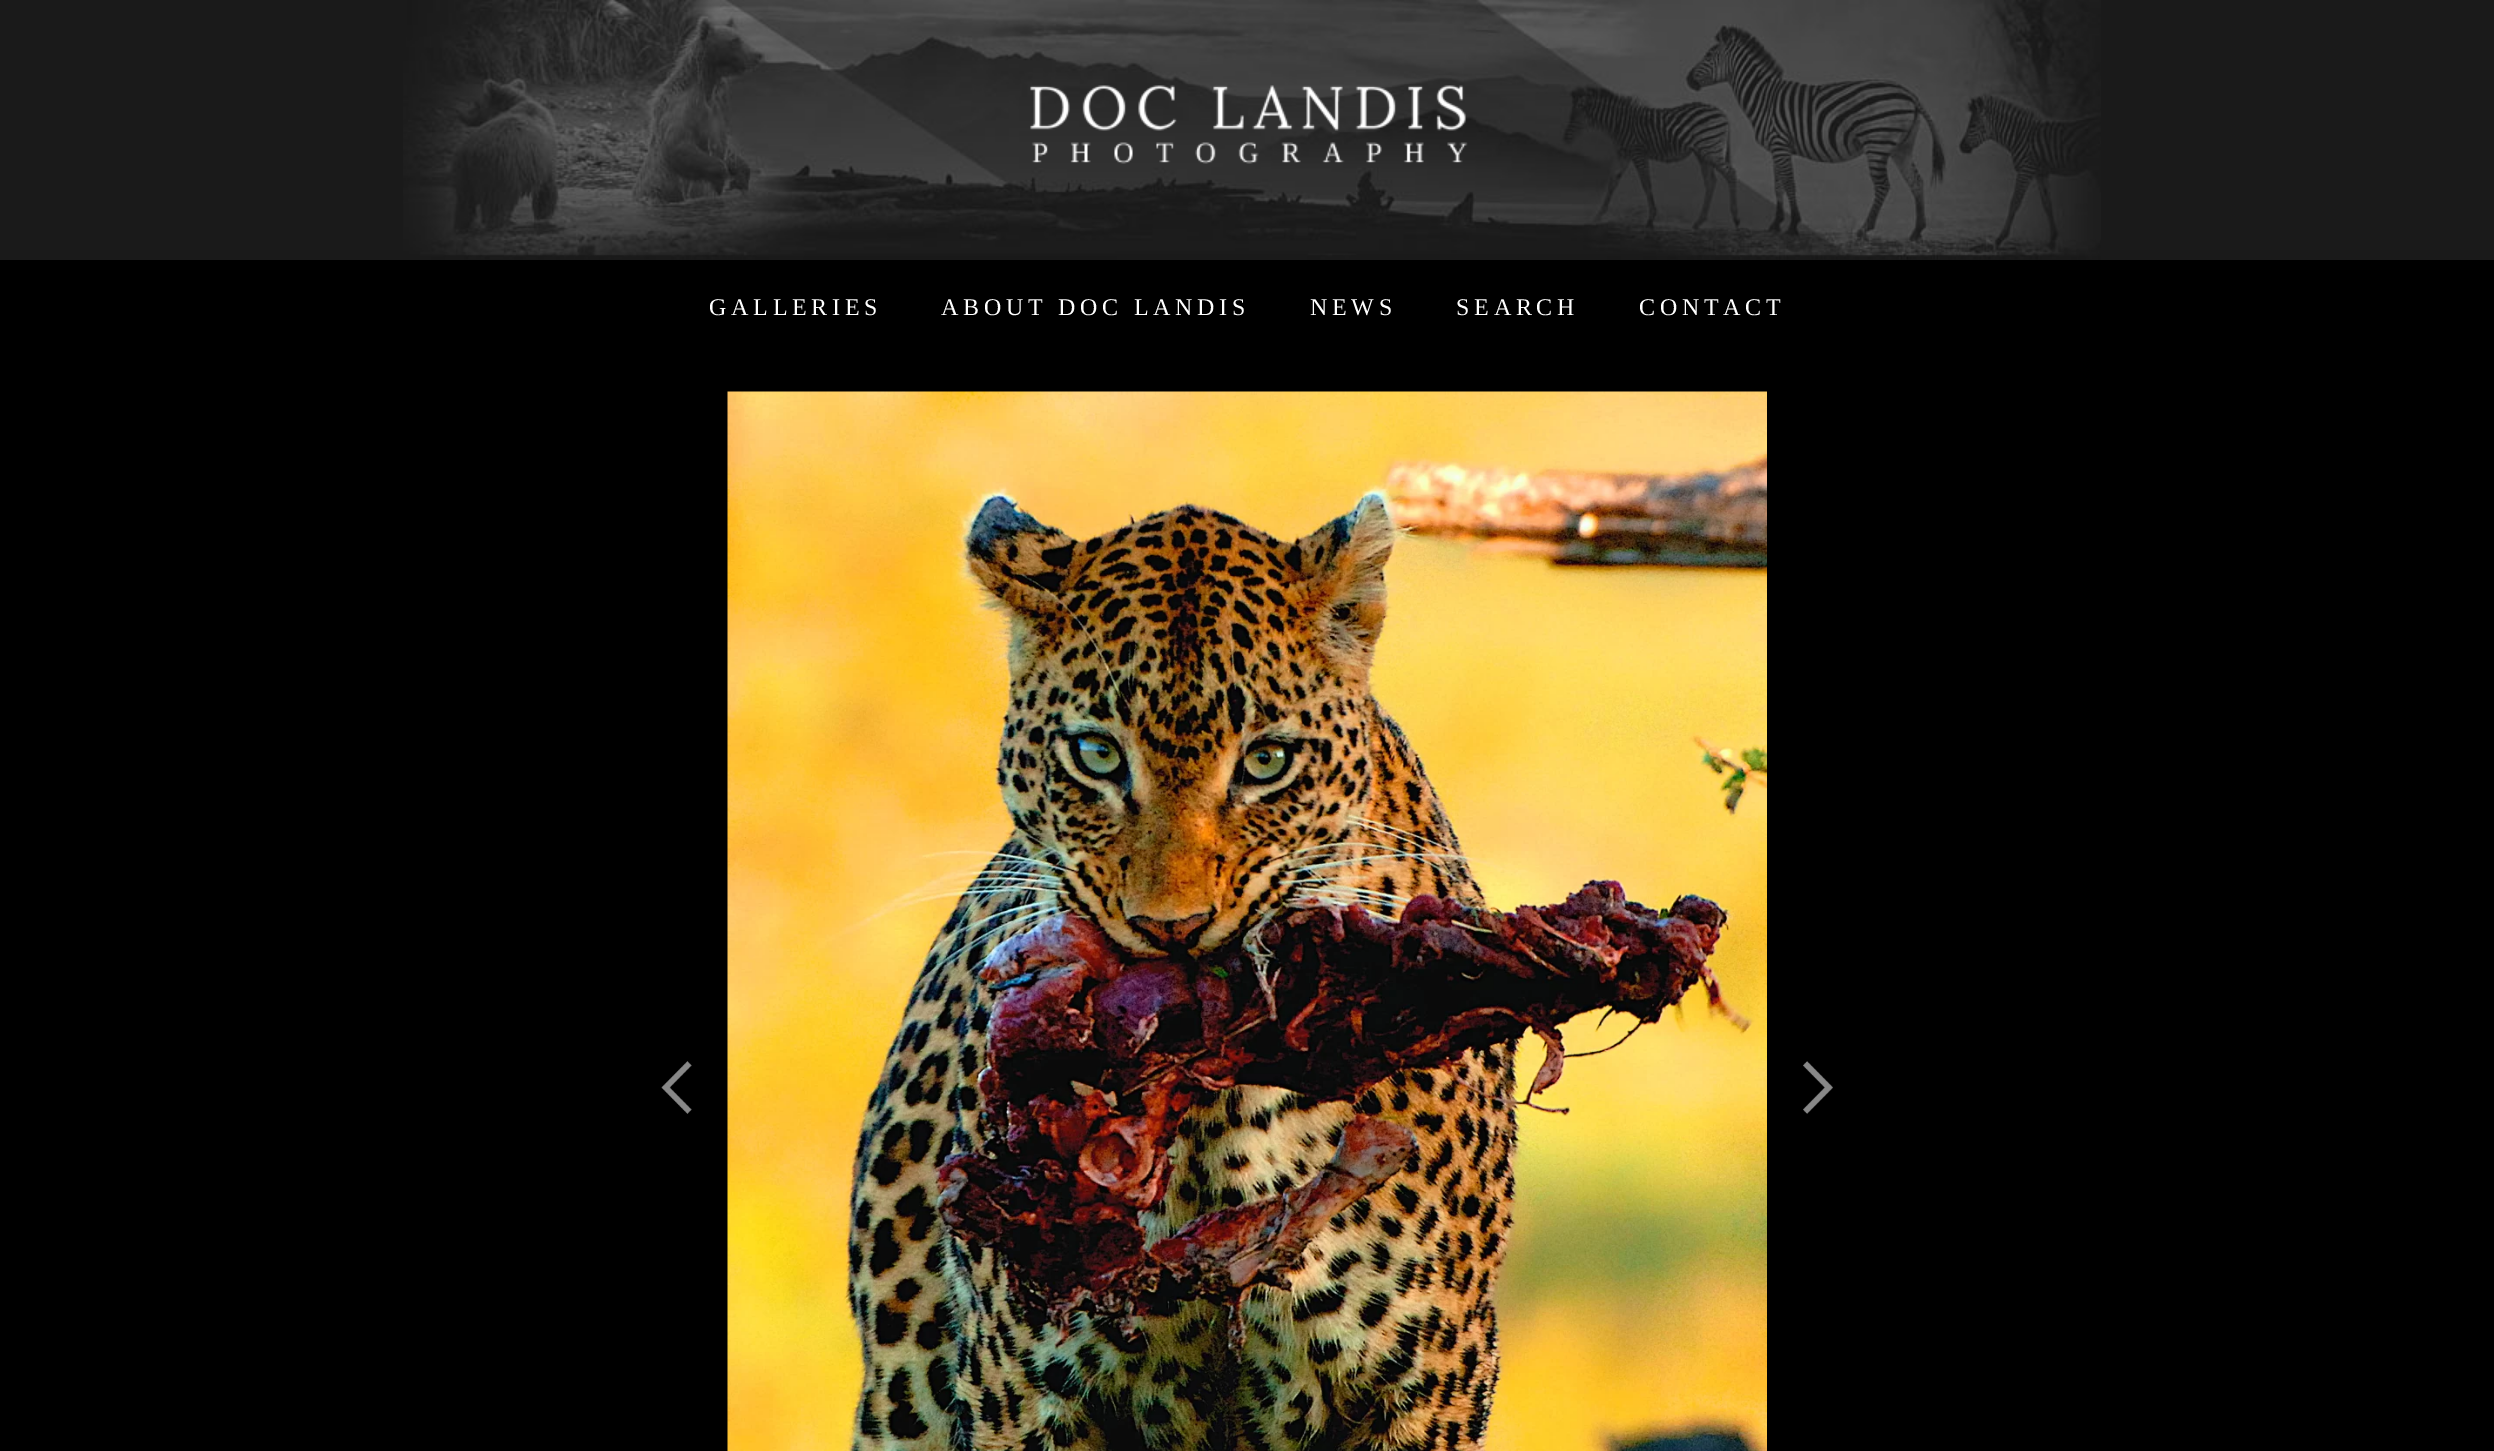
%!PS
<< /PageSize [2494 1451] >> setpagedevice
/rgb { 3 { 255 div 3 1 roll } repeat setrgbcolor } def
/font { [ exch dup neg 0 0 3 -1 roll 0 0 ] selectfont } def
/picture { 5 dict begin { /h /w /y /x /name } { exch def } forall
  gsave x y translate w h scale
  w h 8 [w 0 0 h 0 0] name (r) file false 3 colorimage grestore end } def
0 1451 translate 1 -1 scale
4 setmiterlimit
0 0 0 rgb
0 0 2494 1451 rectfill
26 26 26 rgb
0 0 2494 260 rectfill
(img/1.rgb) 403 0 1698 260 picture
(img/2.rgb) 1030 85 438 79 picture
(img/3.rgb) 661 1061 31 53 picture
(img/4.rgb) 727 391 1040 1060 picture
(img/5.rgb) 1803 1061 30 53 picture
/Tinos-Regular 24 font
255 255 255 rgb
709 315 moveto 4.75 0 (GALLERIES) ashow
941 315 moveto 4.75 0 (ABOUT DOC LANDIS) ashow
1310 315 moveto 4.75 0 (NEWS) ashow
1456 315 moveto 4.75 0 (SEARCH) ashow
1639 315 moveto 4.75 0 (CONTACT) ashow
showpage
